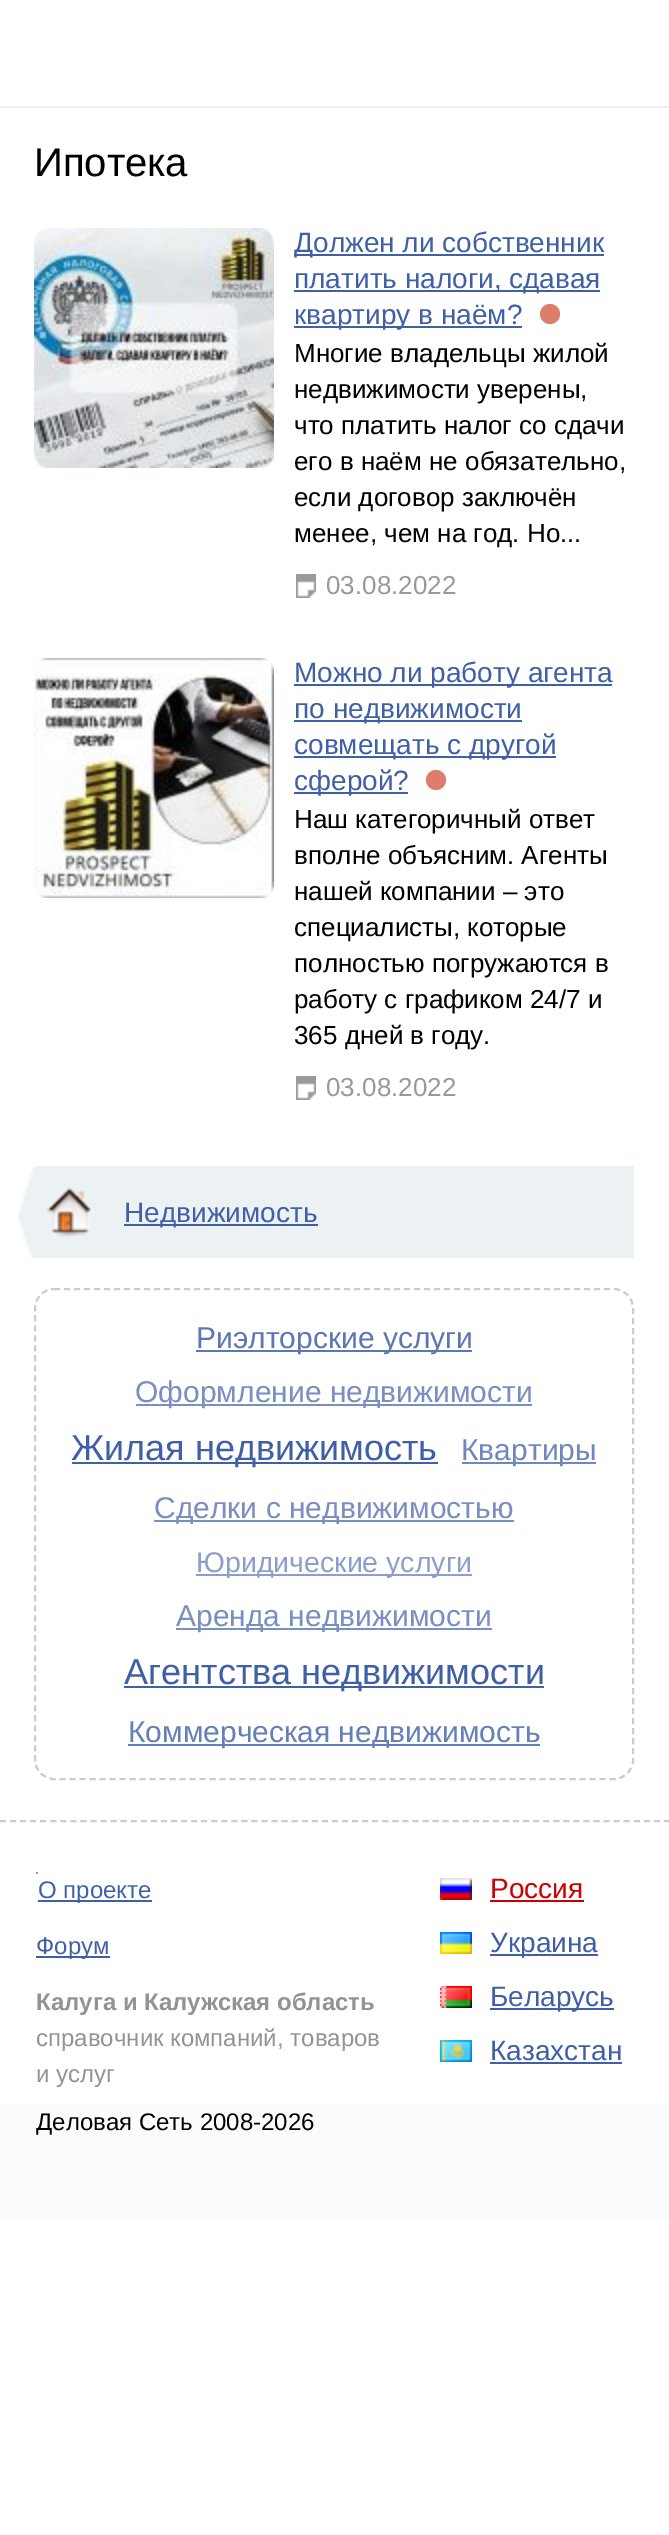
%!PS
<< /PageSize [669 2535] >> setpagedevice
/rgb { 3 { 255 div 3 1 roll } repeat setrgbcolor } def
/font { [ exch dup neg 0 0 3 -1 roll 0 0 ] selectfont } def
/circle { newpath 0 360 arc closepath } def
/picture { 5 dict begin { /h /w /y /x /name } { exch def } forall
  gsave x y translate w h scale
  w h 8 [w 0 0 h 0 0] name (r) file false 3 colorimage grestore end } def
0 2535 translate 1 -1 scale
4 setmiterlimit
255 255 255 rgb
0 0 669 2535 rectfill
238 238 238 rgb
0 106 669 2 rectfill
(img/1.rgb) 34 228 240 240 picture
(img/2.rgb) 34 228 240 240 picture
[
  [294 254 310 2 63 95 166]
  [294 290 306 2 63 95 166]
  [294 326 228 2 63 95 166]
] { aload pop rgb rectfill } forall
221 126 107 rgb
550 314 10 circle fill
(img/3.rgb) 296 574 20 24 picture
(img/4.rgb) 34 658 240 240 picture
(img/5.rgb) 34 658 240 240 picture
[
  [294 684 318 2 63 95 166]
  [294 720 228 2 63 95 166]
  [294 756 262 2 63 95 166]
  [294 792 114 2 63 95 166]
] { aload pop rgb rectfill } forall
221 126 107 rgb
436 780 10 circle fill
(img/3.rgb) 296 1076 20 24 picture
236 242 244 rgb
34 1166 600 92 rectfill
(img/6.rgb) 18 1166 16 92 picture
(img/7.rgb) 46 1188 48 49 picture
63 95 166 rgb
124 1224 194 2 rectfill
204 204 204 rgb
2 setlinewidth
[6 4] 0 setdash
54 1289 moveto 614 1289 lineto 624.5 1289 633 1297.5 633 1308 curveto 633 1760 lineto 633 1770.5 624.5 1779 614 1779 curveto 54 1779 lineto 43.5 1779 35 1770.5 35 1760 curveto 35 1308 lineto 35 1297.5 43.5 1289 54 1289 curveto closepath stroke
[
  [196 1350 276 2 92 119 179]
  [136 1404 396 2 121 143 193]
  [72 1462 366 2 63 95 166]
  [462 1462 134 2 111 135 188]
  [154 1520 360 2 121 143 193]
  [196 1574 276 2 140 159 202]
  [176 1628 316 2 121 143 193]
  [124 1686 420 2 63 95 166]
  [128 1744 412 2 101 127 184]
  [0 2104 669 116 249 251 252]
] { aload pop rgb rectfill } forall
204 204 204 rgb
[6 4.06] 0 setdash
0 1821 moveto 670 1821 lineto stroke
[
  [36 1872 2 2 153 153 153]
  [38 1900 114 2 63 95 166]
  [36 1956 74 2 63 95 166]
] { aload pop rgb rectfill } forall
(img/8.rgb) 440 1878 32 22 picture
204 0 0 rgb
490 1900 94 2 rectfill
(img/9.rgb) 440 1932 32 22 picture
63 95 166 rgb
490 1954 108 2 rectfill
(img/10.rgb) 440 1986 32 22 picture
490 2008 124 2 rectfill
(img/11.rgb) 440 2040 32 22 picture
490 2062 132 2 rectfill
/LiberationSans-Regular 40 font
0 0 0 rgb
34 176 moveto (Ипотека) show
/LiberationSans-Regular 28 font
63 95 166 rgb
[
  [(Должен ли собственник) 294 252]
  [(платить налоги, сдавая) 294 288]
  [(квартиру в наём?) 294 324]
] { aload pop moveto show } forall
/LiberationSans-Regular 26 font
0 0 0 rgb
[
  [(Многие владельцы жилой) 294 362]
  [(недвижимости уверены,) 294 398]
  [(что платить налог со сдачи) 294 434]
  [(его в наём не обязательно,) 294 470]
  [(если договор заключён) 294 506]
  [(менее, чем на год. Но...) 294 542]
] { aload pop moveto show } forall
153 153 153 rgb
326 594 moveto (03.08.2022) show
/LiberationSans-Regular 28 font
63 95 166 rgb
[
  [(Можно ли работу агента) 294 682]
  [(по недвижимости) 294 718]
  [(совмещать с другой) 294 754]
  [(сферой?) 294 790]
] { aload pop moveto show } forall
/LiberationSans-Regular 26 font
0 0 0 rgb
[
  [(Наш категоричный ответ) 294 828]
  [(вполне объясним. Агенты) 294 864]
  [(нашей компании – это) 294 900]
  [(специалисты, которые) 294 936]
  [(полностью погружаются в) 294 972]
  [(работу с графиком 24/7 и) 294 1008]
  [(365 дней в году.) 294 1044]
] { aload pop moveto show } forall
153 153 153 rgb
326 1096 moveto (03.08.2022) show
/LiberationSans-Regular 28 font
63 95 166 rgb
124 1222 moveto (Недвижимость) show
/LiberationSans-Regular 30 font
92 119 179 rgb
196 1348 moveto (Риэлторские услуги) show
121 143 193 rgb
135 1402 moveto (Оформление недвижимости) show
/LiberationSans-Regular 36 font
63 95 166 rgb
71 1460 moveto (Жилая недвижимость) show
/LiberationSans-Regular 30 font
111 135 188 rgb
461 1460 moveto (Квартиры) show
121 143 193 rgb
154 1518 moveto (Сделки с недвижимостью) show
/LiberationSans-Regular 28.5 font
140 159 202 rgb
196 1572 moveto (Юридические услуги) show
/LiberationSans-Regular 30 font
121 143 193 rgb
176 1626 moveto (Аренда недвижимости) show
/LiberationSans-Regular 36 font
63 95 166 rgb
124 1684 moveto (Агентства недвижимости) show
/LiberationSans-Regular 30 font
101 127 184 rgb
128 1742 moveto (Коммерческая недвижимость) show
/LiberationSans-Regular 24 font
63 95 166 rgb
38 1898 moveto (О проекте) show
36 1954 moveto (Форум) show
/LiberationSans-Regular 28 font
204 0 0 rgb
490 1898 moveto (Россия) show
63 95 166 rgb
[
  [(Украина) 490 1952]
  [(Беларусь) 490 2006]
  [(Казахстан) 490 2060]
] { aload pop moveto show } forall
/LiberationSans-Bold 24 font
147 147 147 rgb
36 2010 moveto (Калуга и Калужская область) show
/LiberationSans-Regular 24 font
36 2046 moveto (справочник компаний, товаров) show
36 2082 moveto (и услуг) show
0 0 0 rgb
36 2130 moveto (Деловая Сеть 2008-2026) show
showpage
